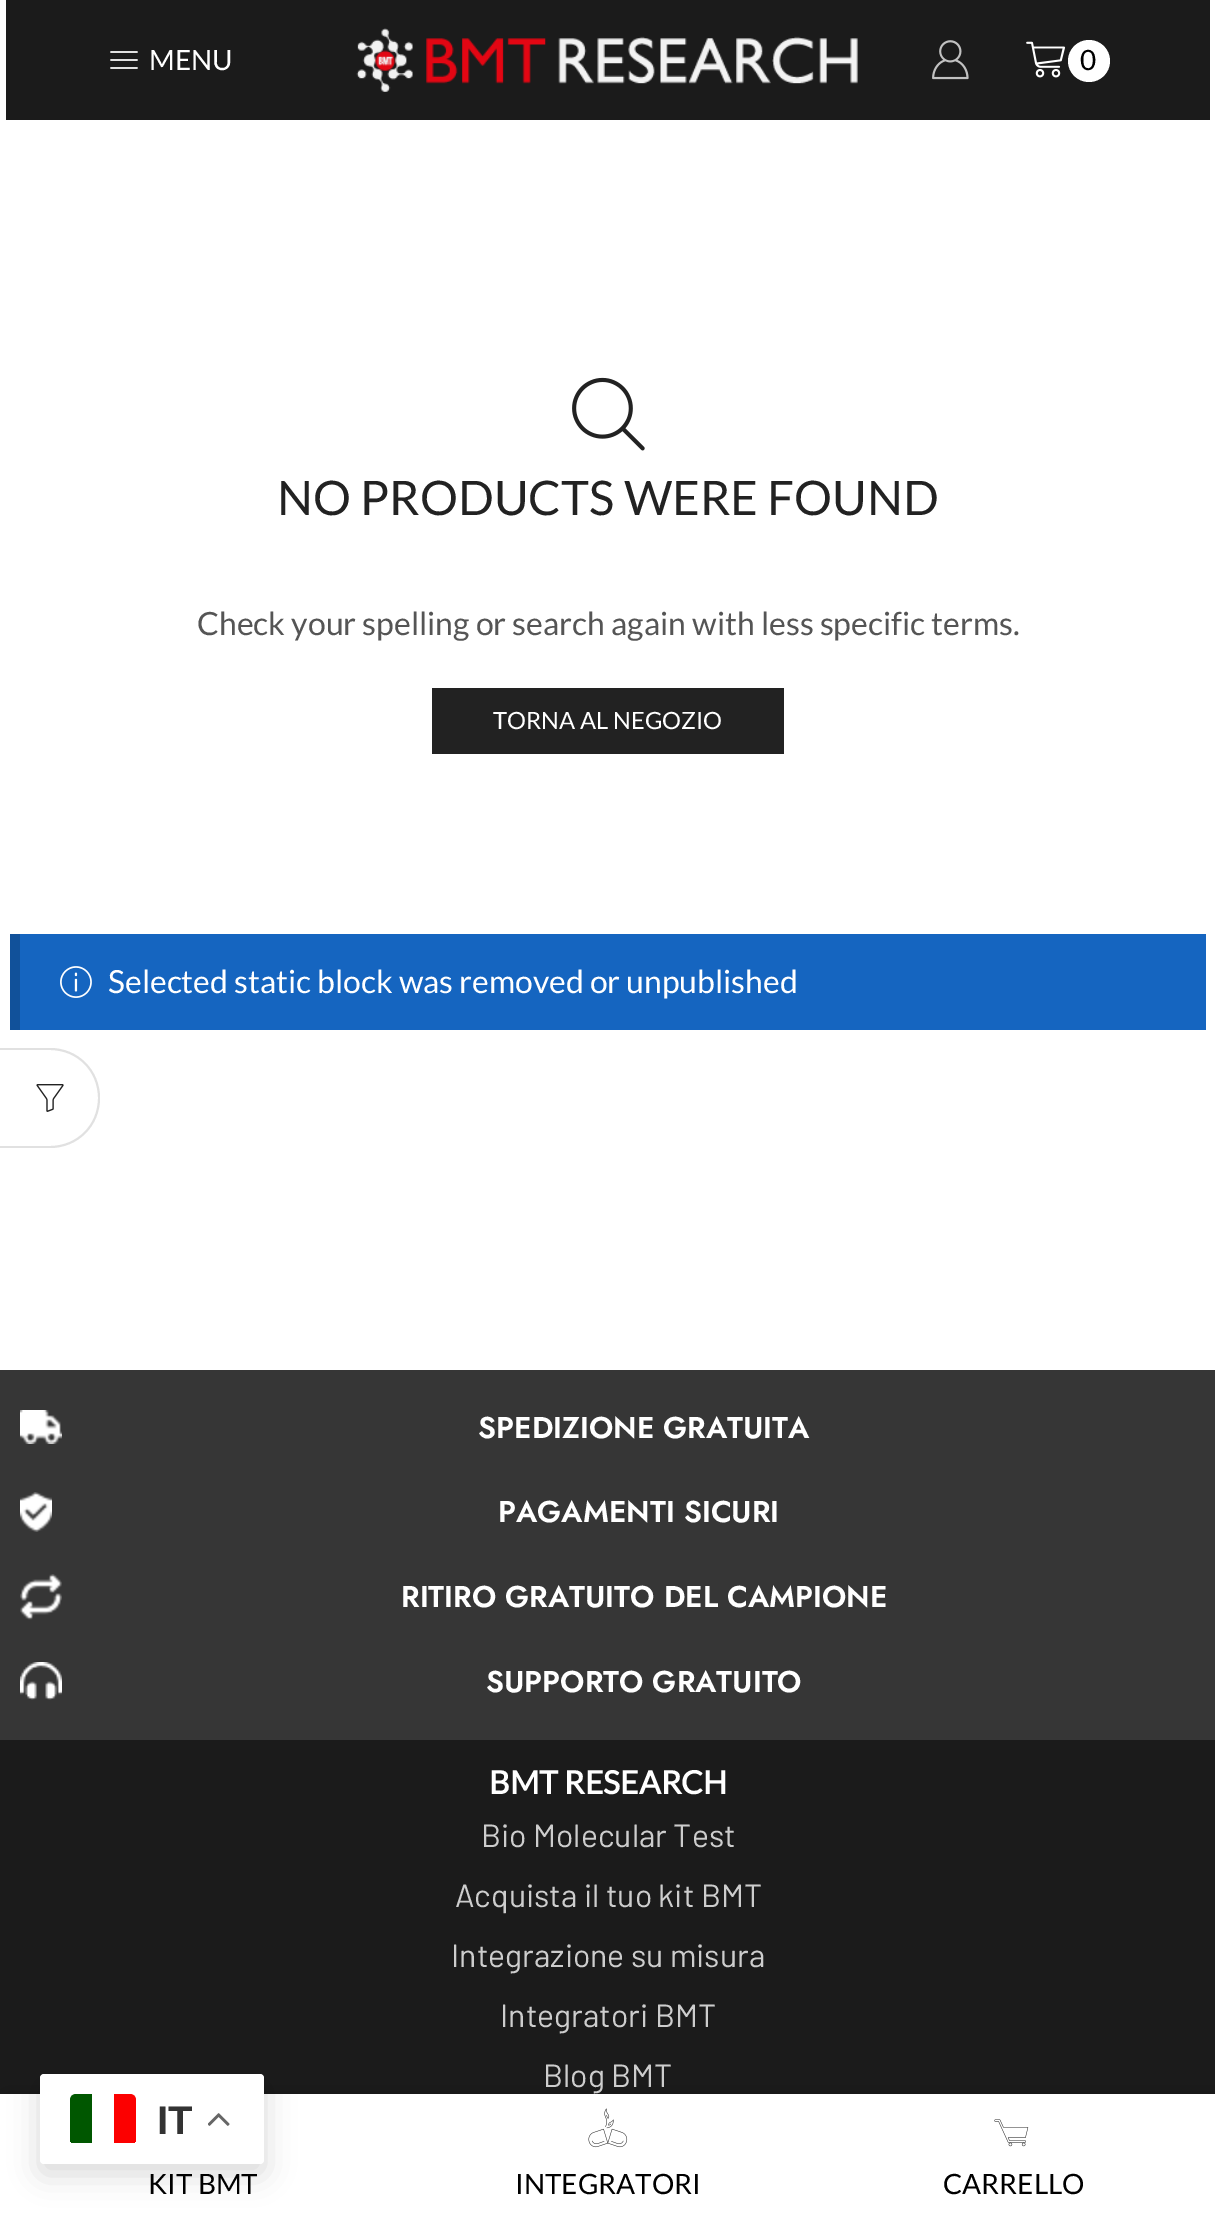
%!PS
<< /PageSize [1215 2214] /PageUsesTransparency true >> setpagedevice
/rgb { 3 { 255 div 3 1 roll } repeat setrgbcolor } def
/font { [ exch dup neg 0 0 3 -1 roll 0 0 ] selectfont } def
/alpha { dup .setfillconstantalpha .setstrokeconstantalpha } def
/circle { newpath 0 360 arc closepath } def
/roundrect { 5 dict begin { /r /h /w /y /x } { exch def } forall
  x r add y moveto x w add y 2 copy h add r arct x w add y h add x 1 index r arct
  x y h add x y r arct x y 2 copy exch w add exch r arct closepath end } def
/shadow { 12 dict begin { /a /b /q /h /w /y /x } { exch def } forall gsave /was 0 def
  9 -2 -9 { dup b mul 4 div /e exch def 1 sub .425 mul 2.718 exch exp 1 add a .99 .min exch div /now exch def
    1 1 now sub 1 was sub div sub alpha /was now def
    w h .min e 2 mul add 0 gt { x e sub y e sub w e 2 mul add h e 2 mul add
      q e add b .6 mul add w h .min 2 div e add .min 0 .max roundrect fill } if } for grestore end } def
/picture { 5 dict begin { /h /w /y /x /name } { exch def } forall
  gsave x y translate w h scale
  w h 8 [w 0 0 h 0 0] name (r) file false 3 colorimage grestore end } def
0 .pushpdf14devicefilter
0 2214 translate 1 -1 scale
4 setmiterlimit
255 255 255 rgb
0 0 1215 2214 rectfill
225 225 225 rgb
0 1048 moveto 50 1048 lineto 78 1048 100 1070 100 1098 curveto 100 1126 78 1148 50 1148 curveto 0 1148 lineto closepath 0 1050 moveto 50 1050 lineto 77 1050 98 1071 98 1098 curveto 98 1125 77 1146 50 1146 curveto 0 1146 lineto closepath eofill
(img/1.rgb) 36 1084 28 28 picture
27 27 27 rgb
6 0 1204 120 rectfill
(img/2.rgb) 110 51 28 18 picture
(img/3.rgb) 356 28 502 64 picture
(img/4.rgb) 932 40 37 40 picture
(img/5.rgb) 1026 41 40 37 picture
255 255 255 rgb
1089 61 21 circle fill
(img/6.rgb) 572 377 73 74 picture
[
  [432 688 352 66 34 34 34]
  [20 934 1186 96 21 101 192]
  [10 934 10 96 17 81 154]
] { aload pop rgb rectfill } forall
(img/7.rgb) 60 966 32 32 picture
54 54 54 rgb
0 1370 1215 370 rectfill
(img/8.rgb) 20 1410 42 34 picture
(img/9.rgb) 20 1492 32 40 picture
(img/10.rgb) 20 1574 42 46 picture
(img/11.rgb) 20 1662 42 38 picture
27 27 27 rgb
0 1740 1215 354 rectfill
0 0 0 rgb
4 2094 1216 120 0 12 0.15 shadow
255 255 255 rgb
0 2094 1215 120 rectfill
(img/12.rgb) 588 2108 40 40 picture
(img/13.rgb) 994 2119 35 28 picture
0 0 0 rgb
40 2084 224 90 4 15 0.15 shadow
255 255 255 rgb
40 2074 224 90 4 roundrect fill
gsave
70 2094 66 50 6 roundrect clip newpath
0 87 0 rgb
76 2094 moveto 92 2094 lineto 92 2143 lineto 70 2143 lineto 70 2100 lineto 70 2096.5 72.5 2094 76 2094 curveto closepath fill
252 0 0 rgb
114 2094 moveto 130 2094 lineto 133.5 2094 136 2096.5 136 2100 curveto 136 2143 lineto 114 2143 lineto closepath fill
grestore
(img/14.rgb) 208 2113 22 13 picture
/Lato-Regular 28 font
149 70 moveto (MENU) show
0 0 0 rgb
1080 70 moveto (0) show
/Lato-Regular 47.6 font
34 34 34 rgb
277 515 moveto (NO PRODUCTS WERE FOUND) show
/Lato-Regular 32 font
85 85 85 rgb
197 635 moveto (Check your spelling or search again with less specific terms.) show
/Lato-Regular 23.75 font
255 255 255 rgb
493 729 moveto (TORNA AL NEGOZIO) show
/Lato-Regular 31.9 font
108 993 moveto (Selected static block was removed or unpublished) show
/Jost-SemiBold 30 font
[
  [(SPEDIZIONE GRATUITA) 478 1438]
  [(PAGAMENTI SICURI) 498 1522]
  [(RITIRO GRATUITO DEL CAMPIONE) 401 1607]
  [(SUPPORTO GRATUITO) 486 1692]
] { aload pop moveto show } forall
/Lato-Bold 32 font
489 1794 moveto (BMT RESEARCH) show
/Barlow-Regular 32 font
205 205 205 rgb
[
  [(Bio Molecular Test) 481 1847]
  [(Acquista il tuo kit BMT) 455 1907]
  [(Integrazione su misura) 451 1967]
  [(Integratori BMT) 500 2027]
  [(Blog BMT) 543 2087]
] { aload pop moveto show } forall
/Lato-Regular 28 font
0 0 0 rgb
[
  [(KIT BMT) 148 2194]
  [(INTEGRATORI) 515 2194]
  [(CARRELLO) 943 2194]
] { aload pop moveto show } forall
/LiberationSans-Bold 40 font
51 51 51 rgb
157 2134 moveto (IT) show
.poppdf14devicefilter showpage
